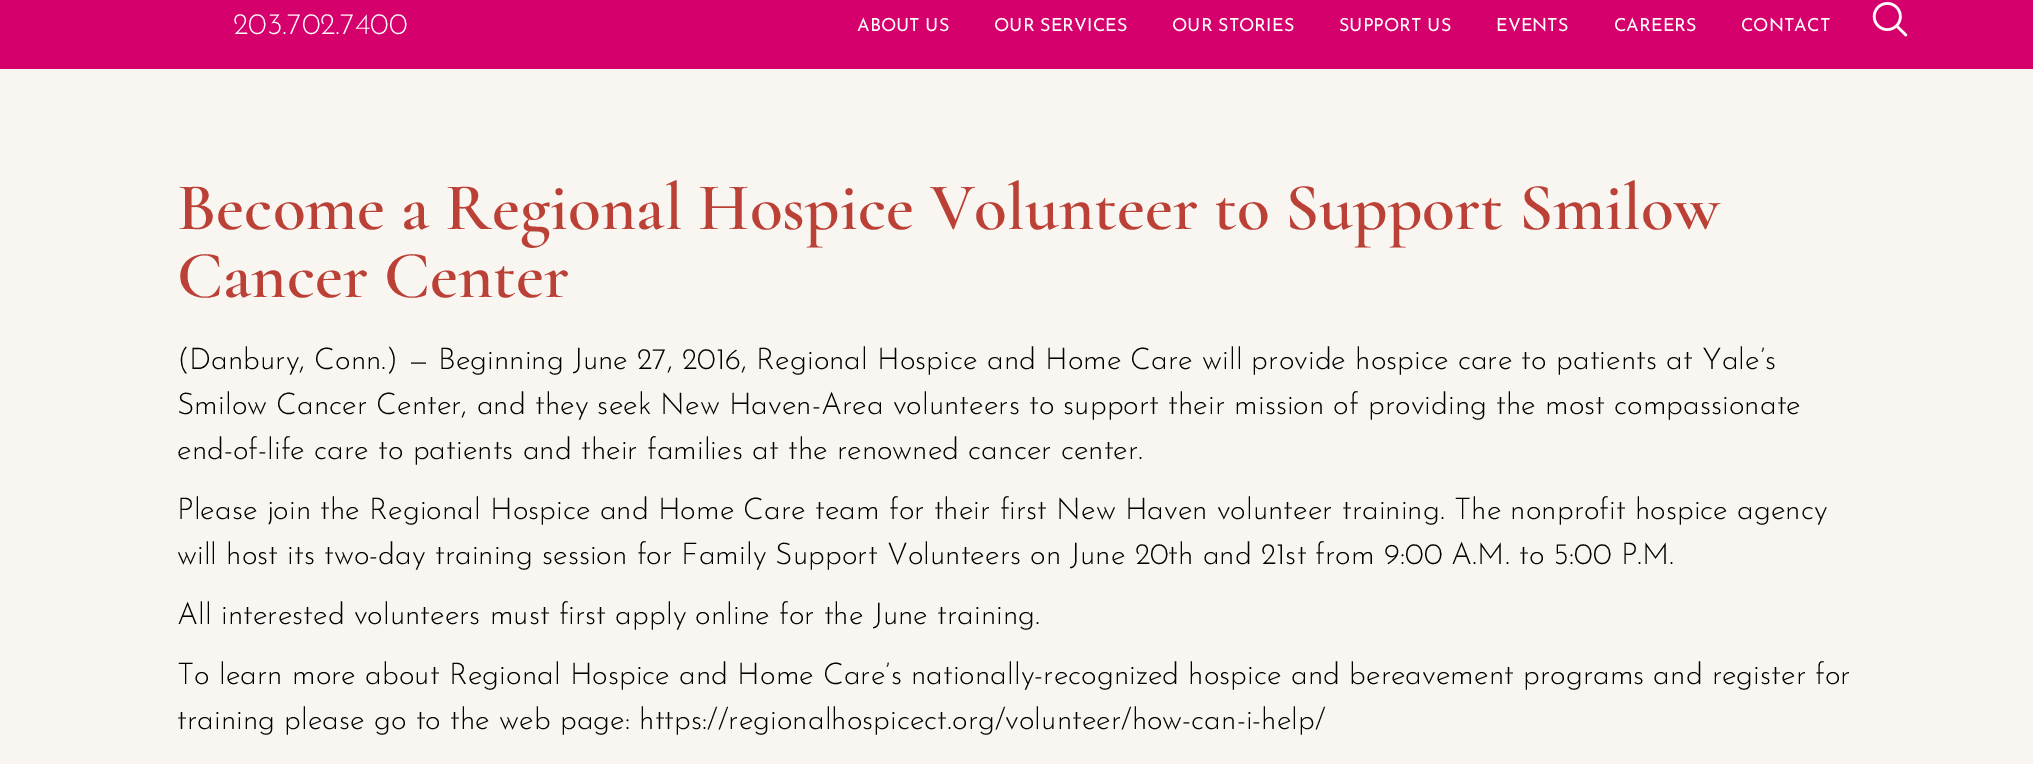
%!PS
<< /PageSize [2033 764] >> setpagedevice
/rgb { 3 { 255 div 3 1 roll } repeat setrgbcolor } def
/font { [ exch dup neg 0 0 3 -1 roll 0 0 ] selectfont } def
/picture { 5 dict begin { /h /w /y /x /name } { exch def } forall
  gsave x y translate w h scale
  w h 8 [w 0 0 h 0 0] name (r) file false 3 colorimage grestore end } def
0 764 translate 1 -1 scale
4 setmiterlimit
249 245 241 rgb
0 0 2033 764 rectfill
214 0 109 rgb
0 0 2033 69 rectfill
(img/1.rgb) 1872 2 36 35 picture
/JosefinSans-Light 30 font
255 255 255 rgb
233 34 moveto (203.702.7400) show
/JosefinSans-Regular 18 font
[
  [(ABOUT US) 857 31]
  [(OUR SERVICES) 994 31]
  [(OUR STORIES) 1172 31]
  [(SUPPORT US) 1339 31]
  [(EVENTS) 1496 31]
  [(CAREERS) 1614 31]
  [(CONTACT) 1741 31]
] { aload pop moveto show } forall
/CormorantGaramond-SemiBold 67.5 font
187 65 54 rgb
177 229 moveto (Become a Regional Hospice Volunteer to Support Smilow) show
177 297 moveto (Cancer Center) show
/JosefinSans-Light 30 font
0 0 0 rgb
[
  [(\(Danbury, Conn.\) — Beginning June 27, 2016, Regional Hospice and Home Care will provide hospice care to patients at Yale’s) 177 369]
  [(Smilow Cancer Center, and they seek New Haven-Area volunteers to support their mission of providing the most compassionate) 177 414]
  [(end-of-life care to patients and their families at the renowned cancer center.) 177 459]
  [(Please join the Regional Hospice and Home Care team for their first New Haven volunteer training. The nonprofit hospice agency) 177 519]
  [(will host its two-day training session for Family Support Volunteers on June 20th and 21st from 9:00 A.M. to 5:00 P.M.) 177 564]
  [(All interested volunteers must first apply online for the June training.) 177 624]
  [(To learn more about Regional Hospice and Home Care’s nationally-recognized hospice and bereavement programs and register for) 177 684]
  [(training please go to the web page: https://regionalhospicect.org/volunteer/how-can-i-help/) 177 729]
] { aload pop moveto show } forall
showpage
